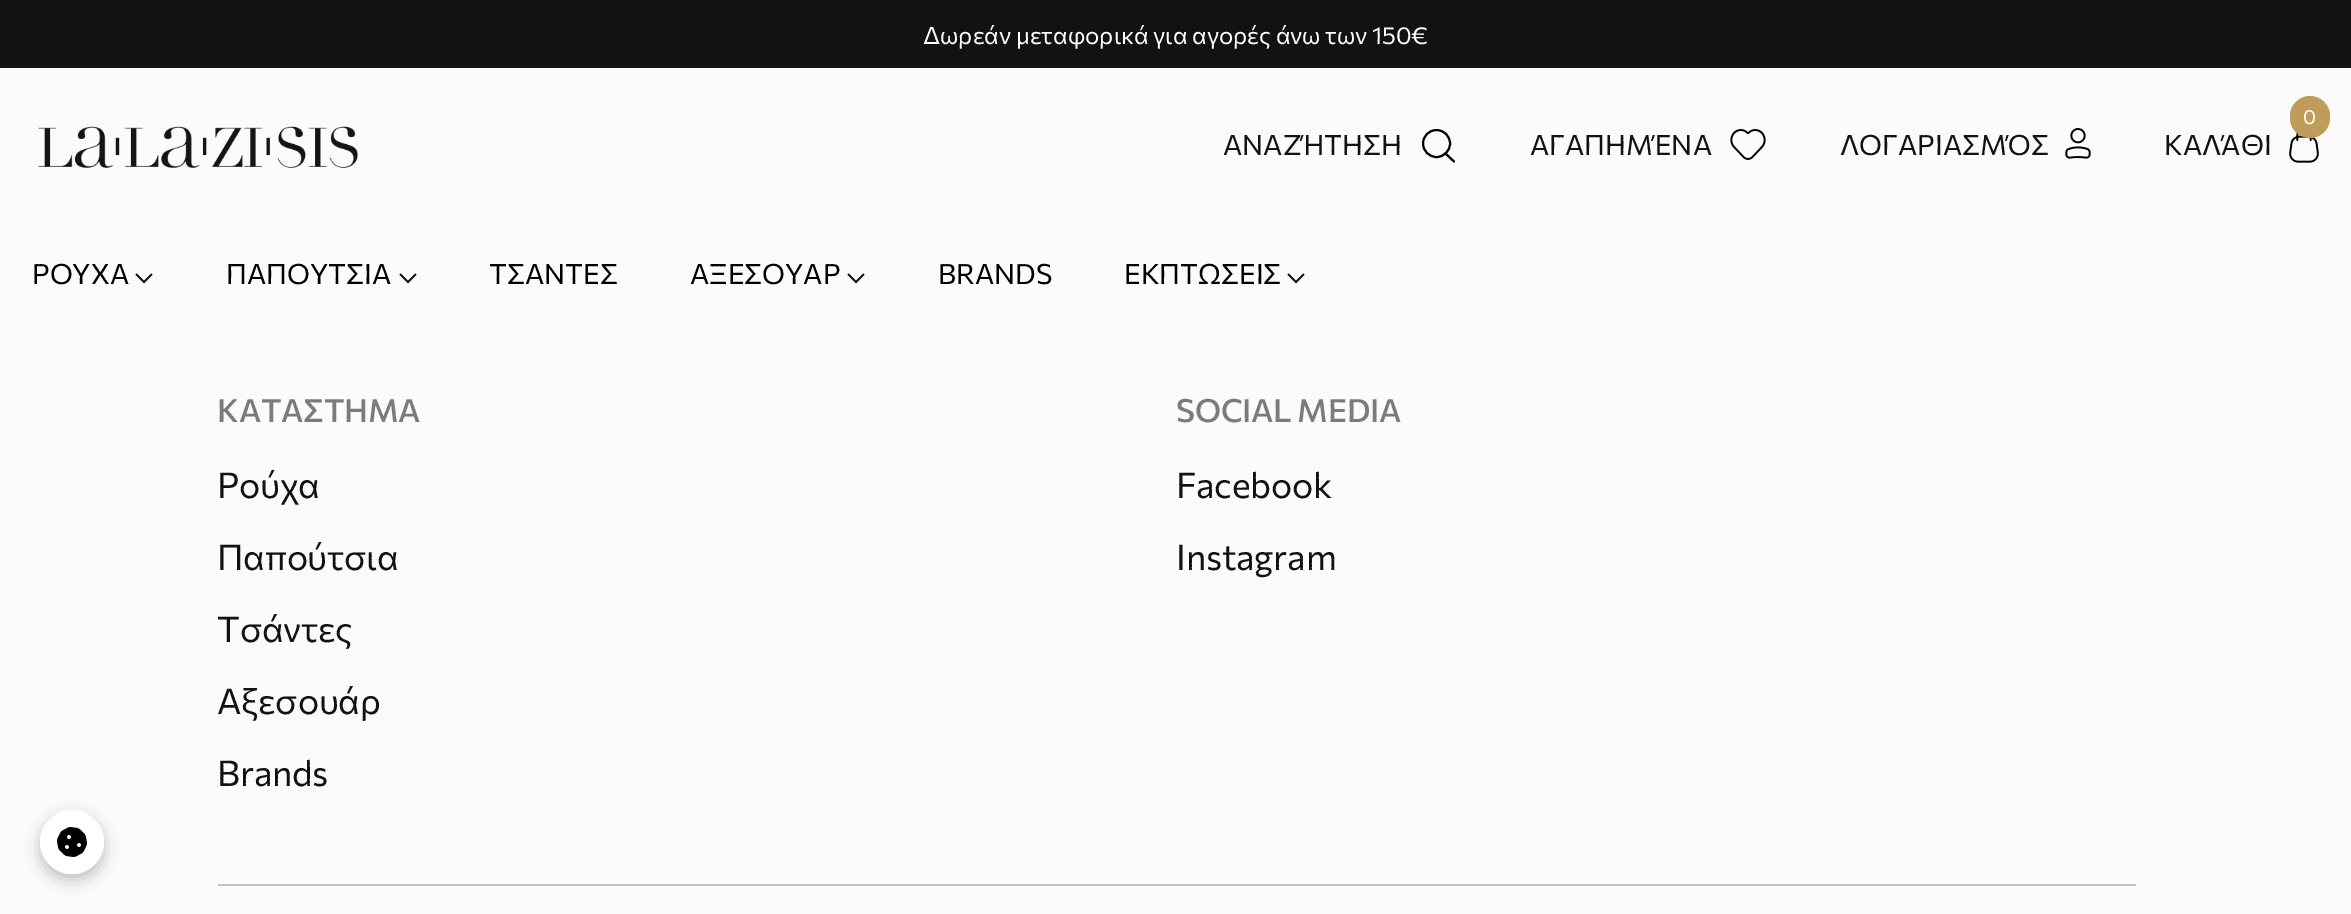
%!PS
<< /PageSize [2351 914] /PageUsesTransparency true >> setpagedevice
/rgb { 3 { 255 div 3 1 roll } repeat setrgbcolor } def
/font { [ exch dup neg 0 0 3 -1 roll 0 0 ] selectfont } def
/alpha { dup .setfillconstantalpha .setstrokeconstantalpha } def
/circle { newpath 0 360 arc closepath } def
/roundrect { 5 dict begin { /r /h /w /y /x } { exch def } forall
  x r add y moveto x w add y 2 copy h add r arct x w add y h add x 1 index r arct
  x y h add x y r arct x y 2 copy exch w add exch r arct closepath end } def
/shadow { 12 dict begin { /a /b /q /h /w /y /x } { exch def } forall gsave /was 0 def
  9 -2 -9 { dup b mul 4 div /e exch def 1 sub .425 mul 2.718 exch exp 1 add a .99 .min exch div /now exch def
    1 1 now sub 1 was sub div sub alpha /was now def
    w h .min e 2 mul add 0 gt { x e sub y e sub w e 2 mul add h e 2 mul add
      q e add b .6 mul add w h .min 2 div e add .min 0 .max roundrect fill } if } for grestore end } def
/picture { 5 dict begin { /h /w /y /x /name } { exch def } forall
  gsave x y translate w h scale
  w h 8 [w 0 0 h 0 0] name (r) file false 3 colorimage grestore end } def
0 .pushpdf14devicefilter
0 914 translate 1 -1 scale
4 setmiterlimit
251 251 251 rgb
0 0 2351 914 rectfill
18 18 18 rgb
0 0 2351 68 rectfill
(img/1.rgb) 38 126 320 42 picture
0 0 0 rgb
2 setlinewidth
1436.5 143.5 13.5 circle stroke
1 setlinecap
1 setlinejoin
1445.5 153.5 moveto 1454 161.5 lineto stroke
(img/2.rgb) 1730 129 36 31 picture
(img/3.rgb) 2065 128 26 31 picture
(img/4.rgb) 2289 132 30 31 picture
191 156 90 rgb
2290 96 40 42 20 roundrect fill
(img/5.rgb) 135 273 18 11 picture
(img/5.rgb) 399 273 18 11 picture
(img/5.rgb) 847 273 18 11 picture
(img/5.rgb) 1287 273 18 11 picture
193 193 193 rgb
218 884 1918 2 rectfill
0 0 0 rgb
40 816 64 64 32 8 0.24 shadow
255 255 255 rgb
72 842 32 circle fill
(img/6.rgb) 57 827 30 30 picture
/Commissioner-Regular 24 font
923 44 moveto (Δωρεάν μεταφορικά για αγορές άνω των 150€) show
/Commissioner-Regular 28 font
18 18 18 rgb
[
  [(ΑΝΑΖΉΤΗΣΗ) 1223 155]
  [(ΑΓΑΠΗΜΈΝΑ) 1530 155]
  [(ΛΟΓΑΡΙΑΣΜΌΣ) 1840 155]
] { aload pop moveto show } forall
/Commissioner-Regular 20 font
255 255 255 rgb
2303 124 moveto (0) show
/Commissioner-Regular 28 font
18 18 18 rgb
2164 155 moveto (ΚΑΛΆΘΙ) show
0 0 0 rgb
[
  [(ΡΟΥΧΑ) 32 284]
  [(ΠΑΠΟΥΤΣΙΑ) 226 284]
  [(ΤΣΑΝΤΕΣ) 489 284]
  [(ΑΞΕΣΟΥΑΡ) 690 284]
  [(BRANDS) 938 284]
  [(ΕΚΠΤΩΣΕΙΣ) 1124 284]
] { aload pop moveto show } forall
/Commissioner-Medium 32 font
123 123 123 rgb
217 422 moveto -0.25 0 (ΚΑΤΑΣΤΗΜΑ) ashow
/Commissioner-Regular 35.5 font
18 18 18 rgb
217 498 moveto -0.25 0 (Ρούχα) ashow
217 570 moveto -0.25 0 (Παπούτσια) ashow
217 642 moveto -0.25 0 (Τσάντες) ashow
217 714 moveto -0.25 0 (Αξεσουάρ) ashow
217 786 moveto -0.25 0 (Brands) ashow
/Commissioner-Medium 32 font
123 123 123 rgb
1176 422 moveto -0.25 0 (SOCIAL MEDIA) ashow
/Commissioner-Regular 35.5 font
18 18 18 rgb
1176 498 moveto -0.25 0 (Facebook) ashow
1176 570 moveto -0.25 0 (Instagram) ashow
.poppdf14devicefilter showpage
